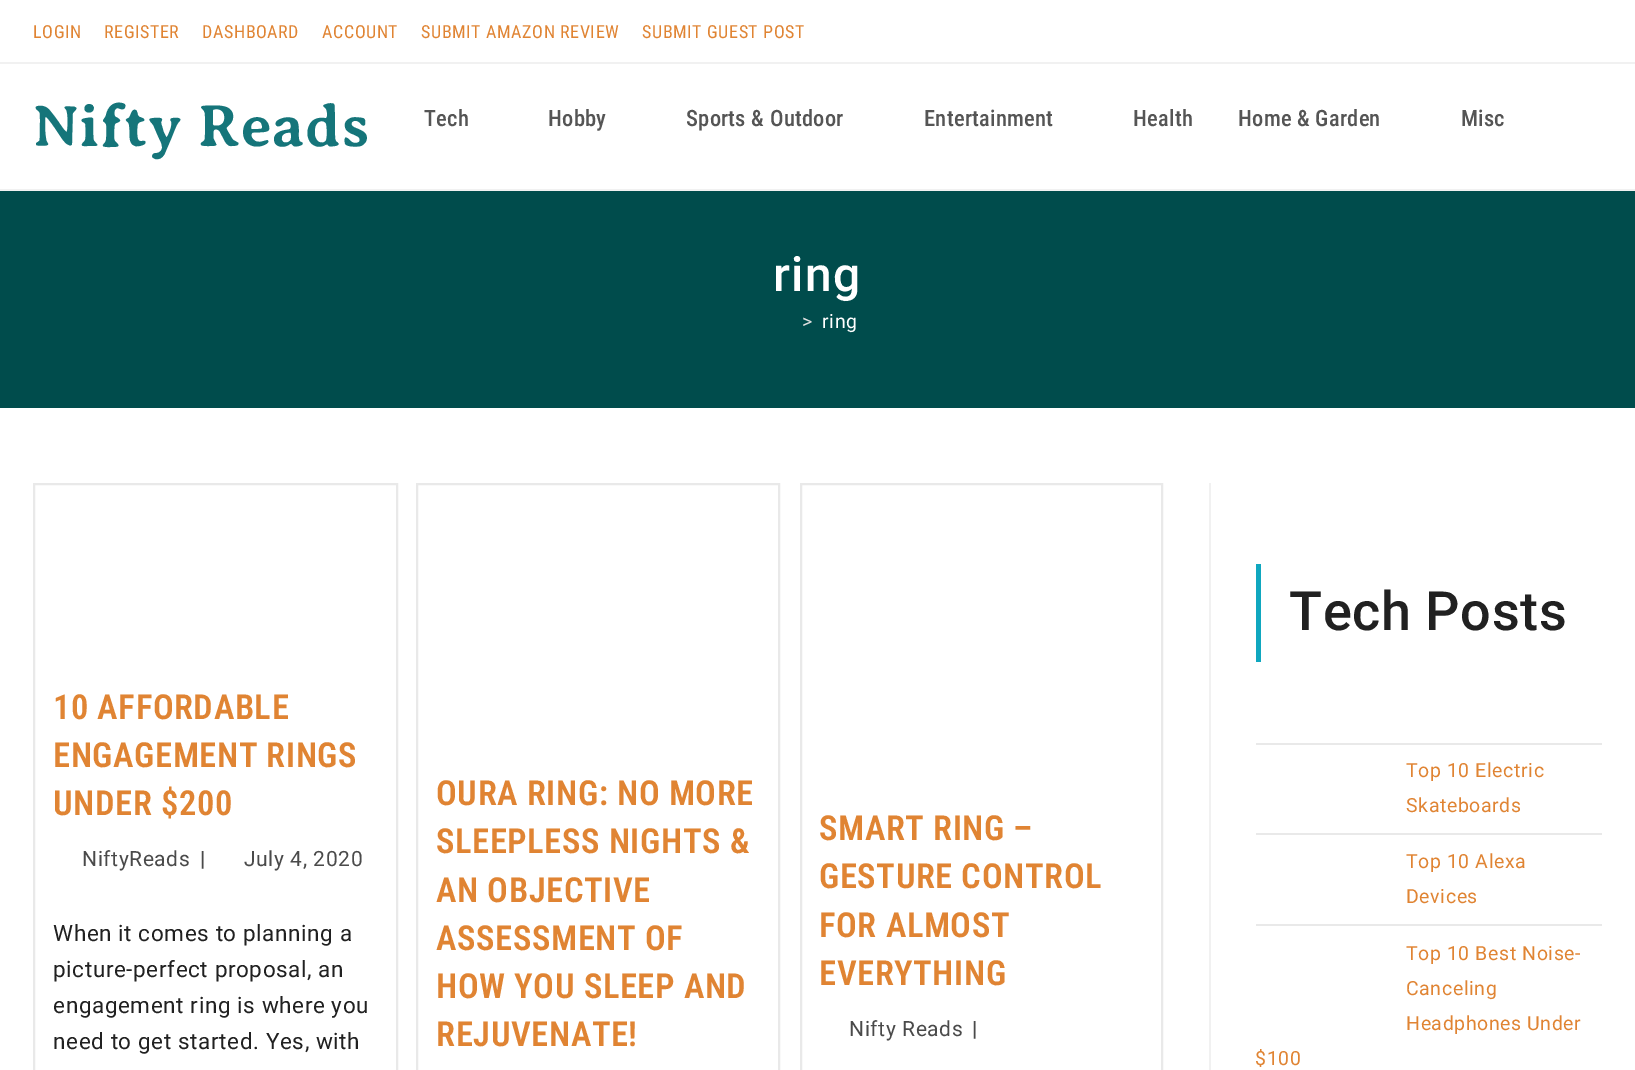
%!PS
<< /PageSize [1635 1070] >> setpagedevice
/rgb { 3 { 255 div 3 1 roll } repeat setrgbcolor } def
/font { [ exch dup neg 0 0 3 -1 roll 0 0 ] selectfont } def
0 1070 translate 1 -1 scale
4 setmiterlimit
255 255 255 rgb
0 0 1635 1070 rectfill
[
  [0 62 1635 2 241 241 241]
  [0 189 1635 2 241 241 241]
  [0 191 1635 217 0 76 76]
  [1209 483 2 587 241 241 241]
] { aload pop rgb rectfill } forall
233 233 233 rgb
2 setlinewidth
34 484 363 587 rectstroke
417 484 362 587 rectstroke
801 484 361 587 rectstroke
[
  [1256 564 5 98 15 167 191]
  [1256 743 346 2 233 233 233]
  [1256 833 346 2 233 233 233]
  [1256 924 346 2 233 233 233]
] { aload pop rgb rectfill } forall
/RobotoCondensed-Regular 18 font
224 132 51 rgb
33 38 moveto 0.6 0 (LOGIN) ashow
104 38 moveto 0.6 0 (REGISTER) ashow
202 38 moveto 0.6 0 (DASHBOARD) ashow
322 38 moveto 0.6 0 (ACCOUNT) ashow
421 38 moveto 0.6 0 (SUBMIT AMAZON REVIEW) ashow
642 38 moveto 0.6 0 (SUBMIT GUEST POST) ashow
/AveriaSerifLibre-Bold 60 font
21 117 122 rgb
33 146 moveto 0.6 0 (Nifty Reads) ashow
/RobotoCondensed-Medium 22.5 font
85 85 85 rgb
424 126 moveto 0.25 0 (Tech) ashow
548 126 moveto 0.25 0 (Hobby) ashow
686 126 moveto 0.25 0 (Sports & Outdoor) ashow
924 126 moveto 0.25 0 (Entertainment) ashow
1133 126 moveto 0.25 0 (Health) ashow
1238 126 moveto 0.25 0 (Home & Garden) ashow
1461 126 moveto 0.25 0 (Misc) ashow
/Roboto-Medium 48 font
255 255 255 rgb
773 291 moveto 1.5 0 (ring) ashow
/Roboto-Regular 19.5 font
224 224 224 rgb
802 328 moveto 0.6 0 (>) ashow
255 255 255 rgb
822 328 moveto 0.6 0 (ring) ashow
/RobotoCondensed-SemiBold 34.5 font
224 132 51 rgb
53 719 moveto 0.6 0 (10 AFFORDABLE) ashow
53 767 moveto 0.6 0 (ENGAGEMENT RINGS) ashow
53 815 moveto 0.6 0 (UNDER $200) ashow
/Roboto-Regular 21 font
74 74 74 rgb
82 866 moveto 0.6 0 (NiftyReads) ashow
/Roboto-Bold 21 font
200 866 moveto 0.6 0 (|) ashow
/Roboto-Regular 21 font
244 866 moveto 0.6 0 (July 4, 2020) ashow
/Roboto-Regular 22.5 font
33 33 33 rgb
53 941 moveto 0.6 0 (When it comes to planning a) ashow
53 977 moveto 0.6 0 (picture-perfect proposal, an) ashow
53 1013 moveto 0.6 0 (engagement ring is where you) ashow
53 1049 moveto 0.6 0 (need to get started. Yes, with) ashow
/RobotoCondensed-SemiBold 34.5 font
224 132 51 rgb
436 805 moveto 0.6 0 (OURA RING: NO MORE) ashow
436 853 moveto 0.6 0 (SLEEPLESS NIGHTS &) ashow
436 902 moveto 0.6 0 (AN OBJECTIVE) ashow
436 950 moveto 0.6 0 (ASSESSMENT OF) ashow
436 998 moveto 0.6 0 (HOW YOU SLEEP AND) ashow
436 1046 moveto 0.6 0 (REJUVENATE!) ashow
819 840 moveto 0.6 0 (SMART RING –) ashow
819 888 moveto 0.6 0 (GESTURE CONTROL) ashow
819 937 moveto 0.6 0 (FOR ALMOST) ashow
819 985 moveto 0.6 0 (EVERYTHING) ashow
/Roboto-Regular 21 font
74 74 74 rgb
849 1036 moveto 0.6 0 (Nifty Reads) ashow
/Roboto-Bold 21 font
972 1036 moveto 0.6 0 (|) ashow
/Roboto-Medium 54 font
33 33 33 rgb
1289 630 moveto 0.6 0 (Tech Posts) ashow
/Roboto-Regular 19.5 font
224 132 51 rgb
1406 777 moveto 0.6 0 (Top 10 Electric) ashow
1406 812 moveto 0.6 0 (Skateboards) ashow
1406 868 moveto 0.6 0 (Top 10 Alexa) ashow
1406 903 moveto 0.6 0 (Devices) ashow
1406 960 moveto 0.6 0 (Top 10 Best Noise-) ashow
1406 995 moveto 0.6 0 (Canceling) ashow
1406 1030 moveto 0.6 0 (Headphones Under) ashow
1255 1065 moveto 0.6 0 ($100) ashow
showpage
